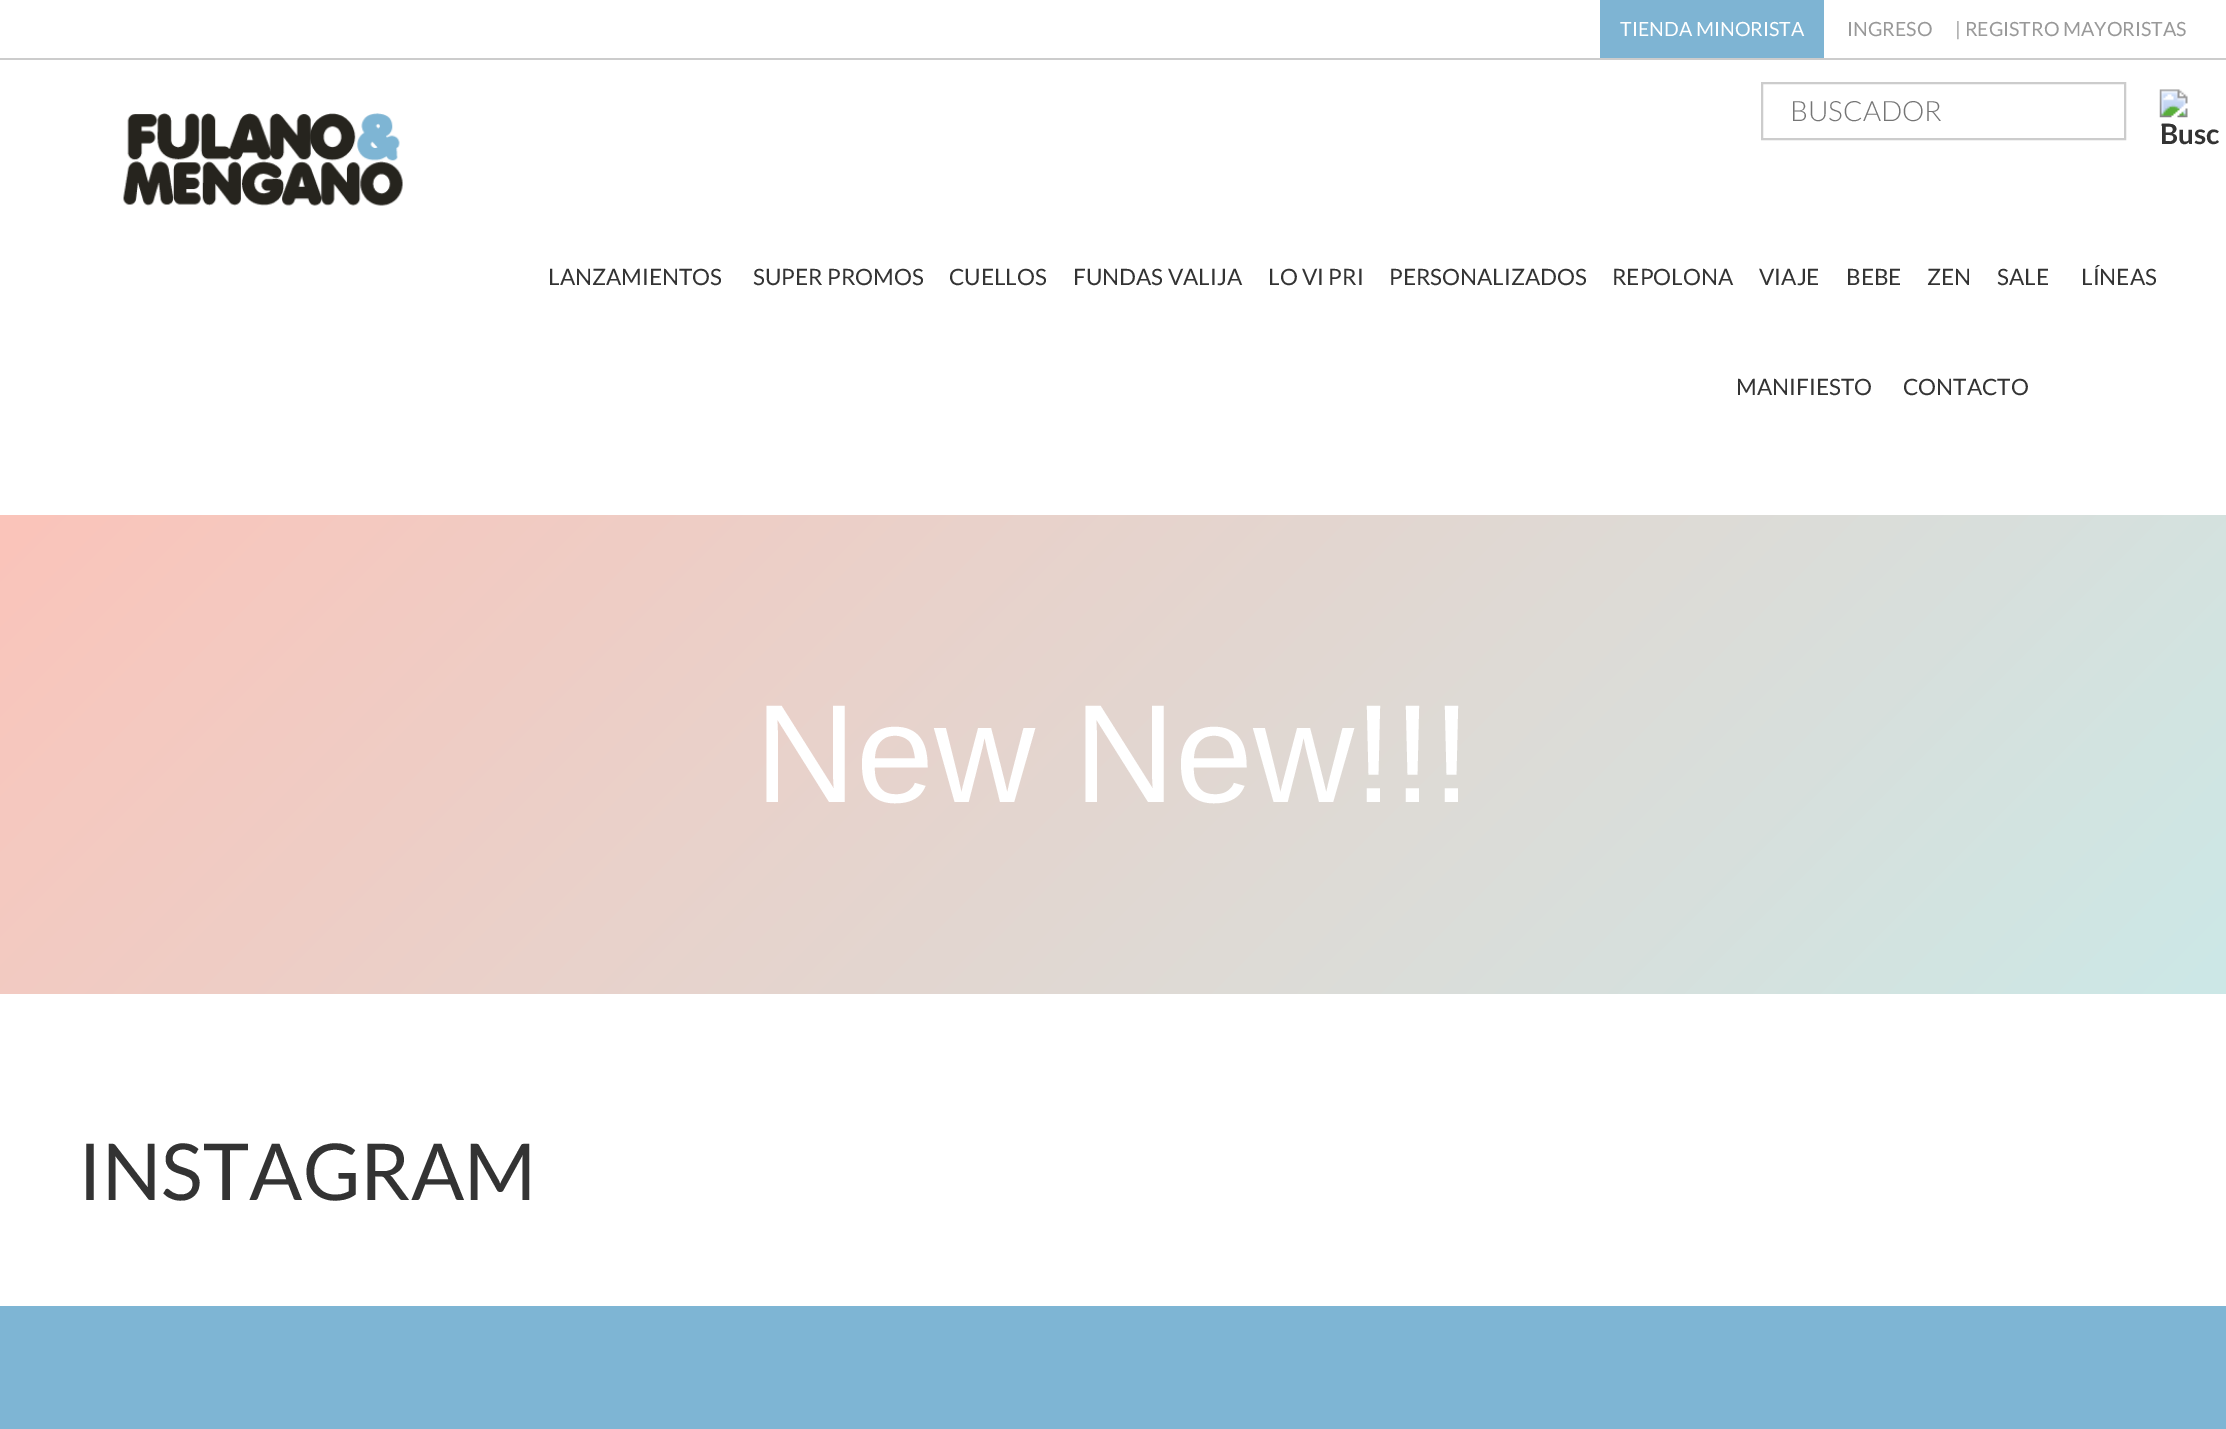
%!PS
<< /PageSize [2226 1429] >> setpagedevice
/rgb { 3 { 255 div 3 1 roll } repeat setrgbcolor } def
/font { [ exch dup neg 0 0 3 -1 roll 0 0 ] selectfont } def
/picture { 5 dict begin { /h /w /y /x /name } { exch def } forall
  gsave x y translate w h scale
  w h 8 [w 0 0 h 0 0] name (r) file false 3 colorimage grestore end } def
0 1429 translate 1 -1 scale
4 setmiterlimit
255 255 255 rgb
0 0 2226 1429 rectfill
204 204 204 rgb
0 58 2226 2 rectfill
126 180 211 rgb
1600 0 224 58 rectfill
(img/1.rgb) 123 113 280 93 picture
204 204 204 rgb
2 setlinewidth
1762 83 363 56 rectstroke
(img/2.rgb) 2159 89 29 37 picture
gsave 0 515 moveto 2226 515 lineto 2226 994 lineto 0 994 lineto closepath clip newpath
<< /ShadingType 2 /ColorSpace /DeviceRGB /Coords [437 78 1789 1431] /Extend [true true] /Function << /FunctionType 2 /Domain [0 1] /C0 [0.984 0.769 0.729] /C1 [0.8 0.91 0.906] /N 1 >> >> shfill grestore
126 181 212 rgb
0 1306 2226 123 rectfill
/Lato-Regular 19.6 font
255 255 255 rgb
1620 36 moveto (TIENDA MINORISTA) show
153 153 153 rgb
1847 36 moveto (INGRESO) show
1955 36 moveto (| REGISTRO MAYORISTAS) show
/Lato-Light 28 font
117 117 117 rgb
1790 121 moveto (BUSCADOR) show
/Lato-Bold 28 font
51 51 51 rgb
2160 144 moveto (Busc) show
/Lato-Regular 22.5 font
[
  [(LANZAMIENTOS) 548 285]
  [(SUPER PROMOS) 753 285]
  [(CUELLOS) 949 285]
  [(FUNDAS VALIJA) 1073 285]
  [(LO VI PRI) 1268 285]
  [(PERSONALIZADOS) 1389 285]
  [(REPOLONA) 1612 285]
  [(VIAJE) 1759 285]
  [(BEBE) 1846 285]
  [(ZEN) 1927 285]
  [(SALE) 1997 285]
  [(LÍNEAS) 2081 285]
  [(MANIFIESTO) 1736 395]
  [(CONTACTO) 1903 395]
] { aload pop moveto show } forall
/LiberationSans-Regular 140 font
255 255 255 rgb
755 802 moveto (New New!!!) show
/Lato-Regular 78.5 font
51 51 51 rgb
78 1200 moveto (INSTAGRAM) show
showpage
